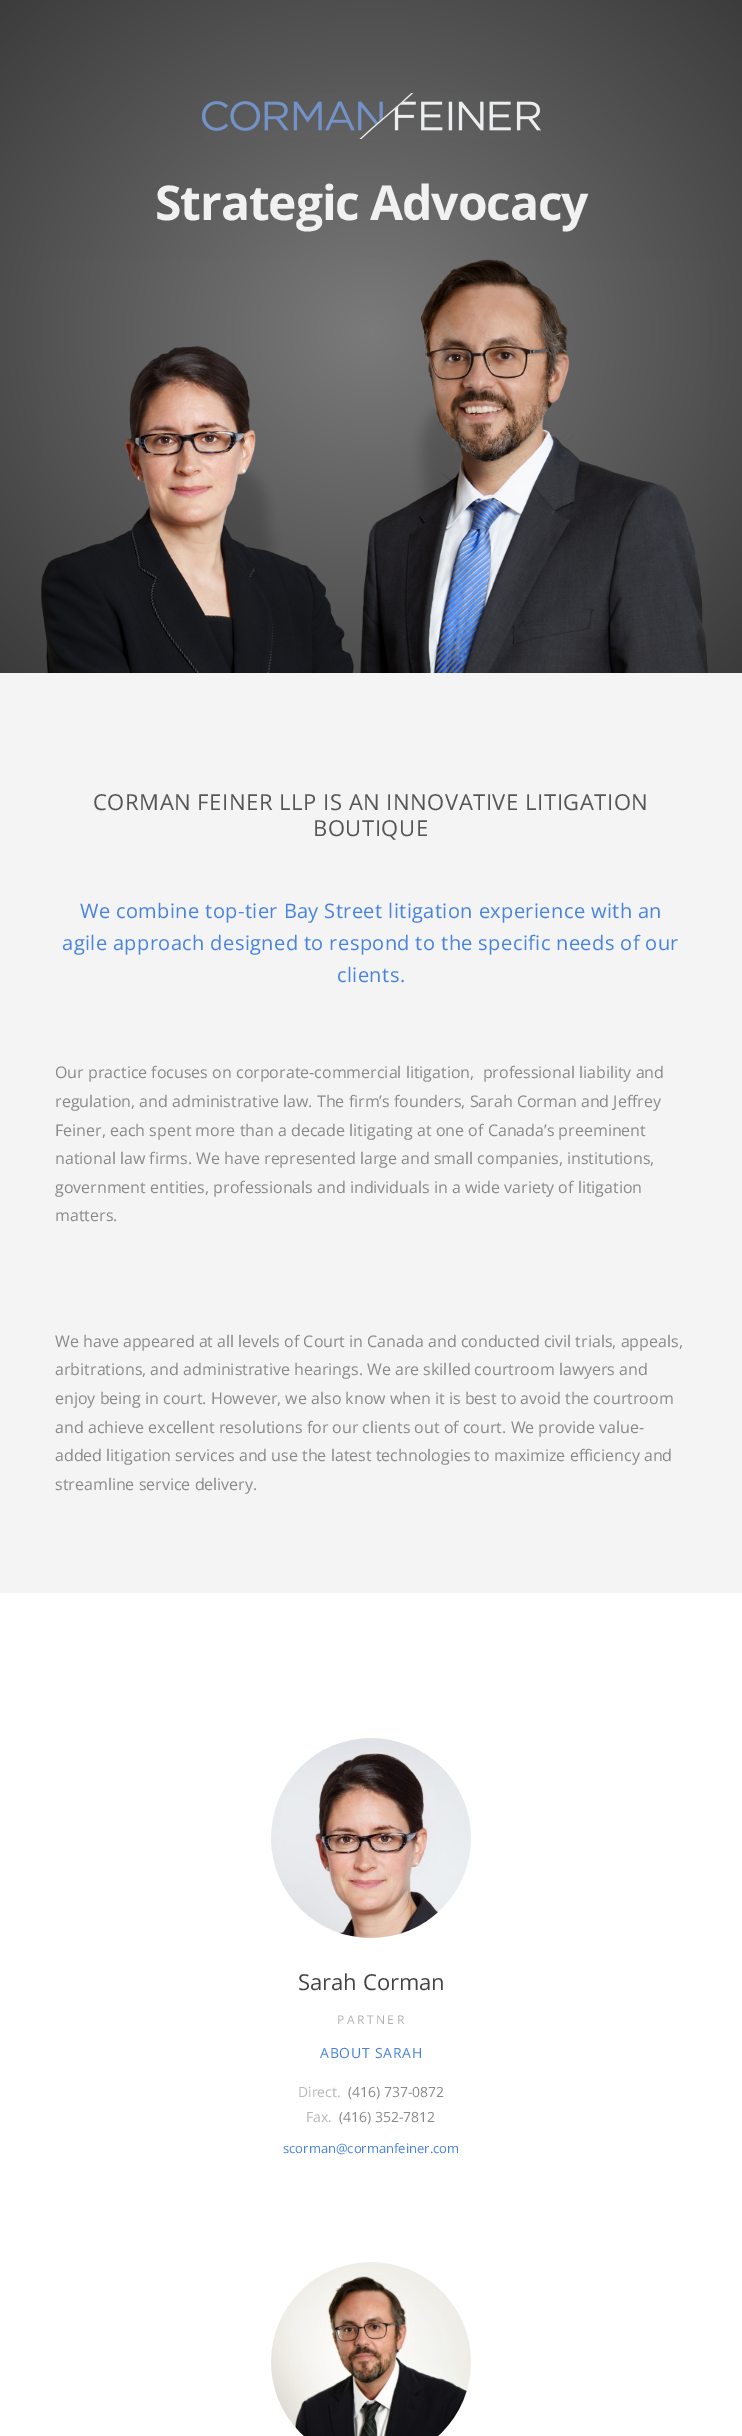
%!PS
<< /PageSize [742 2436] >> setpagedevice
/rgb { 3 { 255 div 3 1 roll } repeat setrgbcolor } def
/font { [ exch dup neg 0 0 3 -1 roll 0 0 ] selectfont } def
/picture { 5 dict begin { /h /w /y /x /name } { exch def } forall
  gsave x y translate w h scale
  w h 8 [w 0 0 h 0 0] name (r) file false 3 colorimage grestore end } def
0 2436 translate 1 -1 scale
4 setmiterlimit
255 255 255 rgb
0 0 742 2436 rectfill
gsave 0 0 moveto 742 0 lineto 742 673 lineto 0 673 lineto closepath clip newpath 371 332 translate 525 483 scale
<< /ShadingType 3 /ColorSpace /DeviceRGB /Coords [0 0 0 0 0 1] /Extend [true true] /Function << /FunctionType 2 /Domain [0 1] /C0 [0.478 0.478 0.478] /C1 [0.231 0.231 0.231] /N 1 >> >> shfill grestore
(img/1.rgb) 202 93 339 46 picture
(img/2.rgb) 41 259 667 414 picture
244 244 244 rgb
0 673 742 920 rectfill
(img/3.rgb) 271 1738 200 200 picture
(img/4.rgb) 271 2262 200 174 picture
/OpenSans-Bold 48 font
241 241 241 rgb
155 220 moveto -1.1 0 (Strategic Advocacy) ashow
/OpenSans-Regular 22 font
85 85 85 rgb
93 810 moveto 0.55 0 (CORMAN FEINER LLP IS AN INNOVATIVE LITIGATION) ashow
313 836 moveto 0.55 0 (BOUTIQUE) ashow
/OpenSans-Regular 20 font
72 131 226 rgb
80 918 moveto 0.4 0 (We combine top-tier Bay Street litigation experience with an) ashow
62 950 moveto 0.4 0 (agile approach designed to respond to the specific needs of our) ashow
337 982 moveto 0.4 0 (clients.) ashow
/OpenSans-Regular 16 font
137 137 137 rgb
[
  [(Our practice focuses on corporate-commercial litigation,  professional liability and) 55 1078]
  [(regulation, and administrative law. The firm’s founders, Sarah Corman and Jeffrey) 55 1107]
  [(Feiner, each spent more than a decade litigating at one of Canada’s preeminent) 55 1136]
  [(national law firms. We have represented large and small companies, institutions,) 55 1164]
  [(government entities, professionals and individuals in a wide variety of litigation) 55 1193]
  [(matters.) 55 1221]
  [(We have appeared at all levels of Court in Canada and conducted civil trials, appeals,) 55 1347]
  [(arbitrations, and administrative hearings. We are skilled courtroom lawyers and) 55 1375]
  [(enjoy being in court. However, we also know when it is best to avoid the courtroom) 55 1404]
  [(and achieve excellent resolutions for our clients out of court. We provide value-) 55 1433]
  [(added litigation services and use the latest technologies to maximize efficiency and) 55 1461]
  [(streamline service delivery.) 55 1490]
] { aload pop moveto show } forall
/OpenSans-Regular 22 font
68 68 68 rgb
298 1990 moveto (Sarah Corman) show
/OpenSans-Regular 12 font
176 176 176 rgb
337 2024 moveto 2.5 0 (PARTNER) ashow
/OpenSans-Regular 14 font
72 131 226 rgb
320 2058 moveto 0.75 0 (ABOUT SARAH) ashow
183 183 183 rgb
298 2097 moveto (Direct.) show
137 137 137 rgb
348 2097 moveto (\(416\) 737-0872) show
183 183 183 rgb
306 2122 moveto (Fax.) show
137 137 137 rgb
339 2122 moveto (\(416\) 352-7812) show
/OpenSans-Regular 13 font
72 131 226 rgb
283 2153 moveto (scorman@cormanfeiner.com) show
showpage
